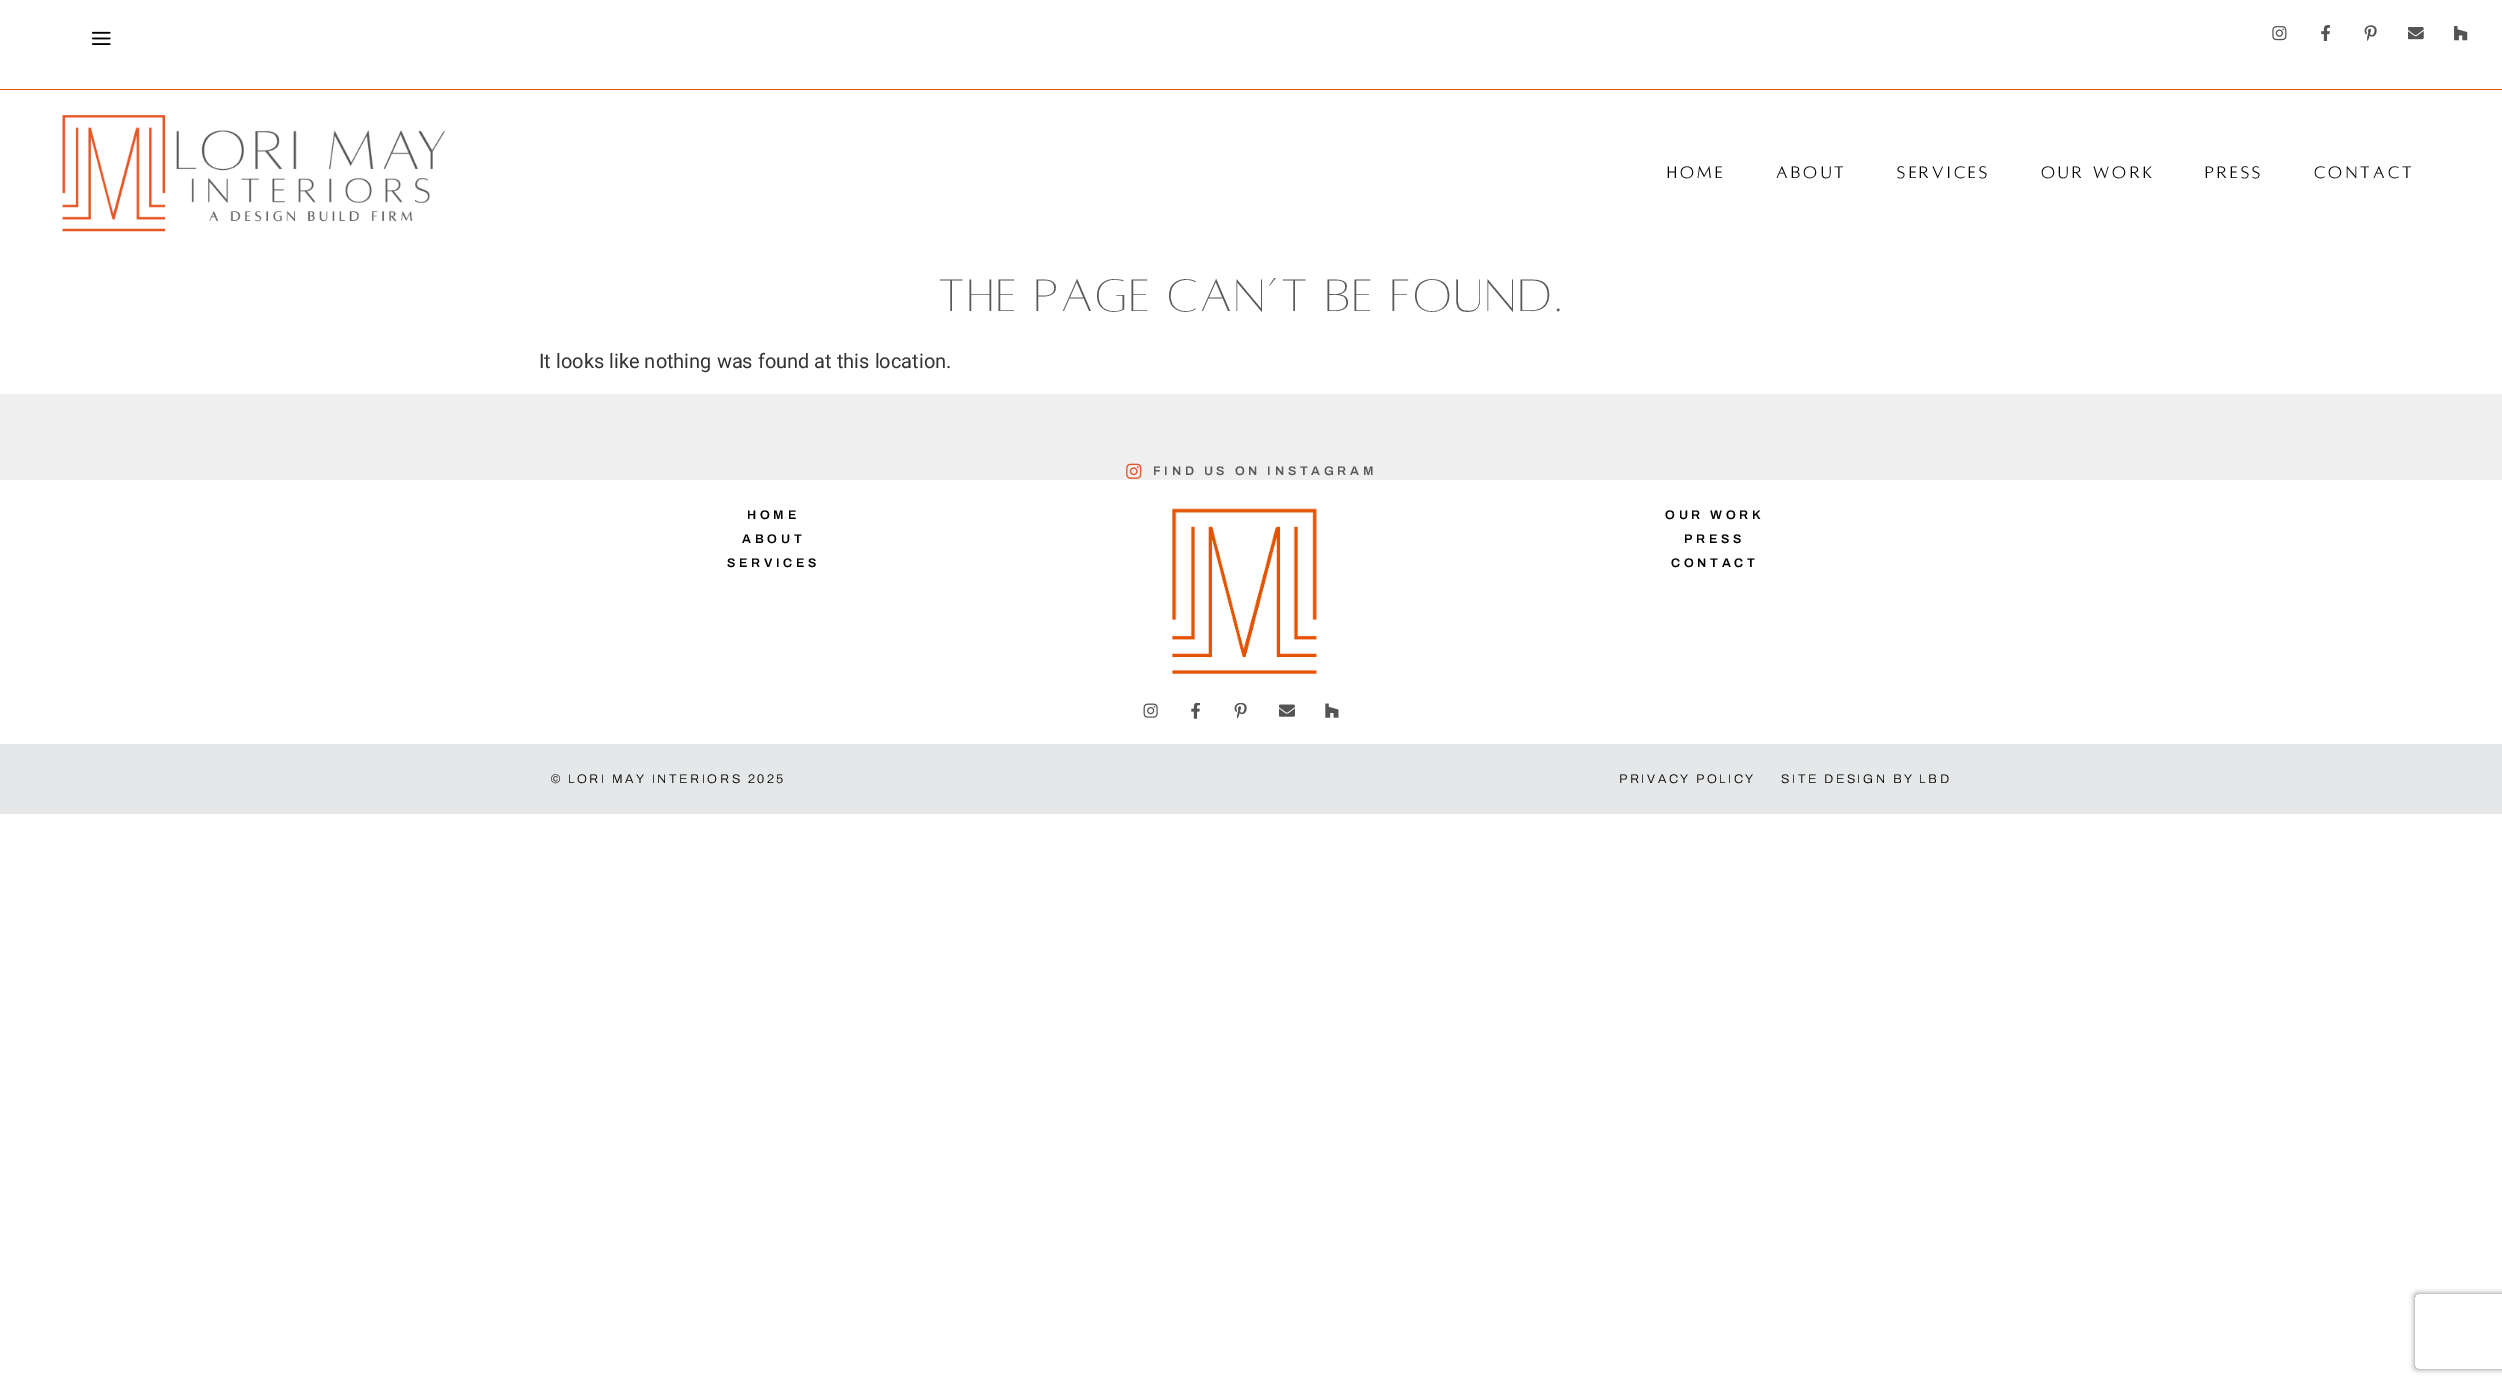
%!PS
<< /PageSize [2502 1386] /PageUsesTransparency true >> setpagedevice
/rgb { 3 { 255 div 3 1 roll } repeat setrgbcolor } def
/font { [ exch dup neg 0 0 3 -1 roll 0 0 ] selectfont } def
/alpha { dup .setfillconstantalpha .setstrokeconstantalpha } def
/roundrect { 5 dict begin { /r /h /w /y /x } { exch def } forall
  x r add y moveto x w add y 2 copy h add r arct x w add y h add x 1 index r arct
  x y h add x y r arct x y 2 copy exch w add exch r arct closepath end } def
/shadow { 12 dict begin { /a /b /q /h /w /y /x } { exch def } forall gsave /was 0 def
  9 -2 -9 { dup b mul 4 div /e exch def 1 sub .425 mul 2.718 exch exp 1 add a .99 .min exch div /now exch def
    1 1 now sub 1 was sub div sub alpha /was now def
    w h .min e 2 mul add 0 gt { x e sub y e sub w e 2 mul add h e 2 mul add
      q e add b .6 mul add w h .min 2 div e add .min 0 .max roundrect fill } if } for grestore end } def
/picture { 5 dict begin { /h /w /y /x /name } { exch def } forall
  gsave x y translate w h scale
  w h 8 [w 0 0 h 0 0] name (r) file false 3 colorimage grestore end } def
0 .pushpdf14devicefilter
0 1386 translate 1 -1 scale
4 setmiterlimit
255 255 255 rgb
0 0 2502 1386 rectfill
230 83 0 rgb
0 89 2502 1 rectfill
(img/1.rgb) 91 31 20 14 picture
(img/2.rgb) 2272 26 15 15 picture
(img/3.rgb) 2321 25 9 16 picture
(img/4.rgb) 2364 25 13 16 picture
(img/5.rgb) 2408 27 16 13 picture
(img/6.rgb) 2454 26 14 15 picture
(img/7.rgb) 62 115 383 117 picture
239 239 239 rgb
0 394 2502 86 rectfill
(img/8.rgb) 1126 463 16 16 picture
(img/9.rgb) 1172 508 145 167 picture
(img/10.rgb) 1143 703 15 15 picture
(img/11.rgb) 1191 703 9 16 picture
(img/12.rgb) 1234 703 13 16 picture
(img/13.rgb) 1279 704 16 13 picture
(img/14.rgb) 1325 703 14 15 picture
230 231 232 rgb
0 744 2502 70 rectfill
gsave
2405 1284 moveto 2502 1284 lineto 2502 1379 lineto 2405 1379 lineto closepath 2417.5 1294 moveto 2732.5 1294 lineto 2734 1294 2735 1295 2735 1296.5 curveto 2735 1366.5 lineto 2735 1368 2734 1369 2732.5 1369 curveto 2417.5 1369 lineto 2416 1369 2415 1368 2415 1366.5 curveto 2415 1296.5 lineto 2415 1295 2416 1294 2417.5 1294 curveto closepath eoclip newpath
128 128 128 rgb
2415 1294 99 75 2.5 3 1 shadow
grestore
/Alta-Bold 17.5 font
0 0 0 rgb
1667 178 moveto 3.75 0 (HOME) ashow
1776 178 moveto 3.75 0 (ABOUT) ashow
1897 178 moveto 3.75 0 (SERVICES) ashow
2041 178 moveto 3.75 0 (OUR WORK) ashow
2205 178 moveto 3.75 0 (PRESS) ashow
2314 178 moveto 3.75 0 (CONTACT) ashow
/Alta-Light 50 font
88 89 91 rgb
938 311 moveto 2.5 0 (The page can’t be found.) ashow
/Roboto-Regular 20 font
51 51 51 rgb
539 368 moveto (It looks like nothing was found at this location.) show
/Archivo-SemiBold 12.5 font
88 89 91 rgb
1153 475 moveto 3.75 0 (FIND US ON INSTAGRAM) ashow
0 0 0 rgb
747 519 moveto 3.75 0 (HOME) ashow
742 543 moveto 3.75 0 (ABOUT) ashow
727 567 moveto 3.75 0 (SERVICES) ashow
1665 519 moveto 3.75 0 (OUR WORK) ashow
1684 543 moveto 3.75 0 (PRESS) ashow
1671 567 moveto 3.75 0 (CONTACT) ashow
/Archivo-Light 12.5 font
551 783 moveto 2.5 0 (© LORI MAY INTERIORS 2025) ashow
1619 783 moveto 2.5 0 (PRIVACY POLICY) ashow
1781 783 moveto 2.5 0 (SITE DESIGN BY LBD) ashow
.poppdf14devicefilter showpage
